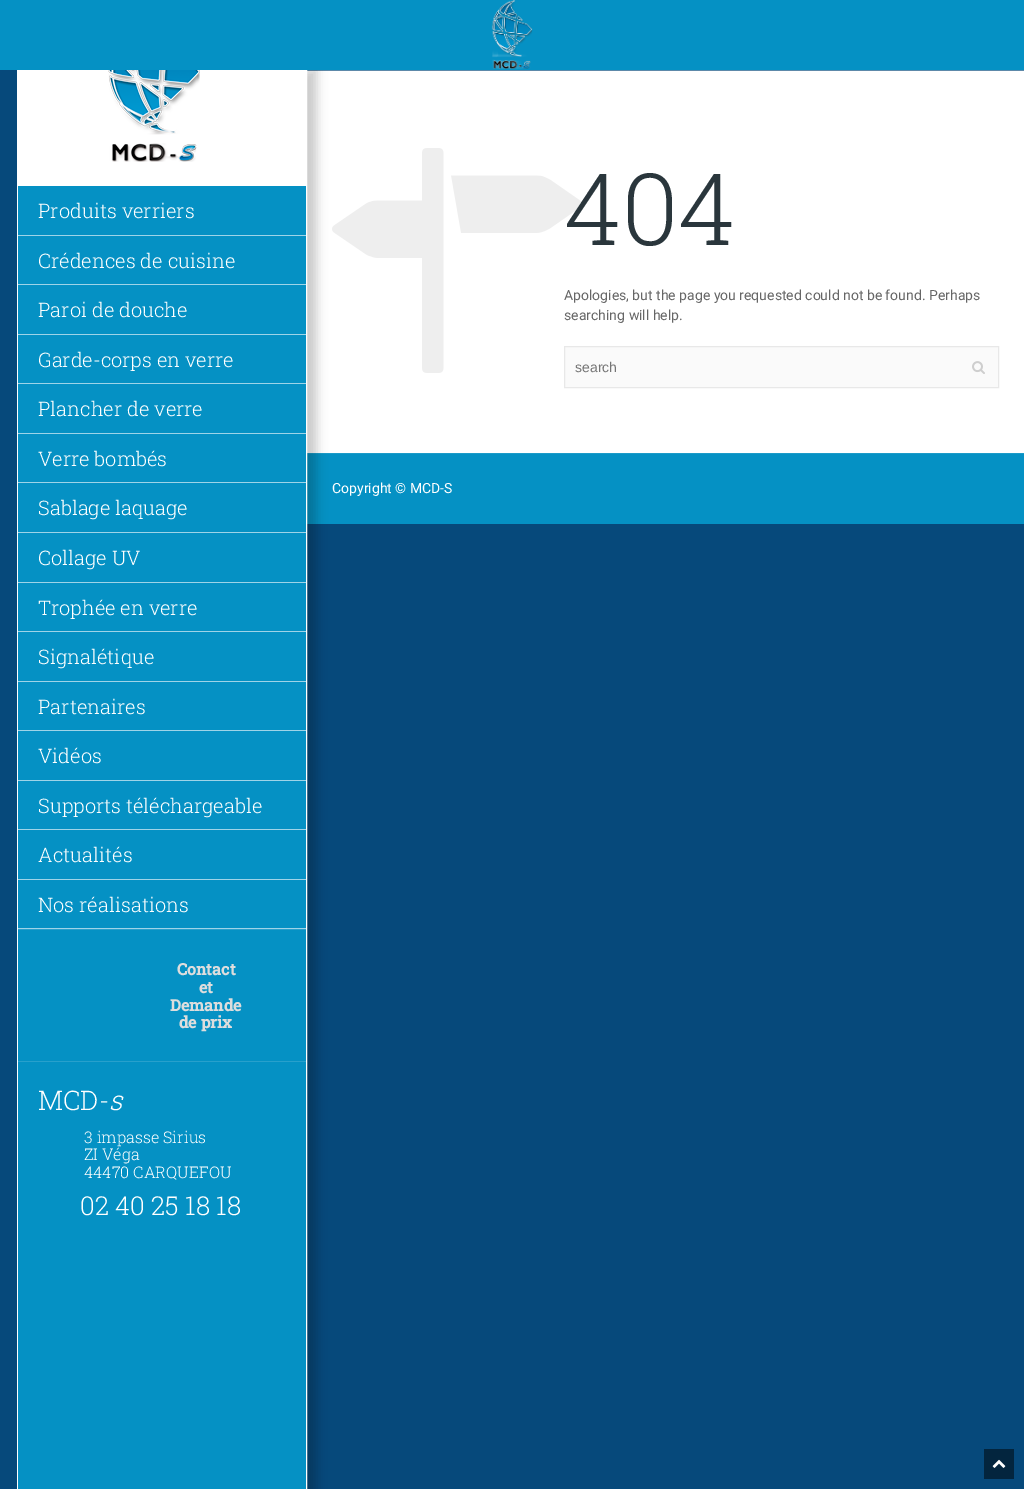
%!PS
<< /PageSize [1024 1489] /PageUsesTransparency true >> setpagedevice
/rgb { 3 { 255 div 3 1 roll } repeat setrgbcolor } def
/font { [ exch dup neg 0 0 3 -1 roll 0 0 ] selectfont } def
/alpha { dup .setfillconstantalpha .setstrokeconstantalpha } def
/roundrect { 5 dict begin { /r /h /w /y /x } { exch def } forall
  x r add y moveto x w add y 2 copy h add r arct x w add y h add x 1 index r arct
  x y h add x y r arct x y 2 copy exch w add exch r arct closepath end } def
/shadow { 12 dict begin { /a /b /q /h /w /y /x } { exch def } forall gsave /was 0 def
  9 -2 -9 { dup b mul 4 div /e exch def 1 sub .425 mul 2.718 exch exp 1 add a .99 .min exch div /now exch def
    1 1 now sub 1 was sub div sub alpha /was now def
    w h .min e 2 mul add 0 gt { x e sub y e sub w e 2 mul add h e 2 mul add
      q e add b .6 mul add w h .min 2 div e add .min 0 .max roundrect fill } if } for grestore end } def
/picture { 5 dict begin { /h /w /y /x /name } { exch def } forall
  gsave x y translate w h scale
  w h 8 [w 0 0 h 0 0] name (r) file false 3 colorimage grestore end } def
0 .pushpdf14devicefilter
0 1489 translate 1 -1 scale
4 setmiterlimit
6 73 123 rgb
0 0 1024 1489 rectfill
93 137 169 rgb
307 70 717 1 rectfill
255 255 255 rgb
307 71 717 382 rectfill
(img/3.rgb) 332 148 250 225 picture
5 145 196 rgb
307 454 717 70 rectfill
28 155 201 rgb
307 453 717 1 rectfill
0 0 0 rgb
-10 70 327 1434 0 5 0.2 shadow
255 255 255 rgb
17.5 -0.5 289 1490 rectstroke
5 145 196 rgb
0 0 1024 70 rectfill
(img/1.rgb) 491 0 42 69 picture
6 73 123 rgb
0 70 17 1419 rectfill
255 255 255 rgb
18 70 288 116 rectfill
(img/2.rgb) 108 70 92 92 picture
[
  [18 186 288 49 5 145 196]
  [18 235 288 1 158 212 232]
  [18 236 288 48 5 145 196]
  [18 284 288 1 158 212 232]
  [18 285 288 49 5 145 196]
  [18 334 288 1 158 212 232]
  [18 335 288 48 5 145 196]
  [18 383 288 1 158 212 232]
  [18 384 288 49 5 145 196]
  [18 433 288 1 158 212 232]
  [18 434 288 48 5 145 196]
  [18 482 288 1 158 212 232]
  [18 483 288 49 5 145 196]
  [18 532 288 1 158 212 232]
  [18 533 288 49 5 145 196]
  [18 582 288 1 158 212 232]
  [18 583 288 48 5 145 196]
  [18 631 288 1 158 212 232]
  [18 632 288 49 5 145 196]
  [18 681 288 1 158 212 232]
  [18 682 288 48 5 145 196]
  [18 730 288 1 158 212 232]
  [18 731 288 49 5 145 196]
  [18 780 288 1 158 212 232]
  [18 781 288 48 5 145 196]
  [18 829 288 1 158 212 232]
  [18 830 288 49 5 145 196]
  [18 879 288 1 158 212 232]
  [18 880 288 48 5 145 196]
  [18 928 288 1 158 212 232]
  [18 929 288 1 40 160 204]
  [18 930 288 559 5 145 196]
  [18 1061 288 1 40 160 204]
] { aload pop rgb rectfill } forall
250 250 250 rgb
564.5 346.5 moveto 998.5 346.5 lineto 998.5 387.5 lineto 564.5 387.5 lineto closepath gsave fill grestore
232 232 232 rgb
stroke
(img/4.rgb) 972 361 13 13 picture
3 37 62 rgb
984 1449 30 30 rectfill
(img/5.rgb) 992 1459 14 9 picture
/RobotoSlab-Light 20 font
255 255 255 rgb
[
  [(Produits verriers) 38 218]
  [(Crédences de cuisine) 38 268]
  [(Paroi de douche) 38 317]
  [(Garde-corps en verre) 38 367]
  [(Plancher de verre) 38 416]
  [(Verre bombés) 38 466]
  [(Sablage laquage) 38 515]
  [(Collage UV) 38 565]
  [(Trophée en verre) 38 615]
  [(Signalétique) 38 664]
  [(Partenaires) 38 714]
  [(Vidéos) 38 763]
  [(Supports téléchargeable) 38 813]
  [(Actualités) 38 862]
  [(Nos réalisations) 38 912]
] { aload pop moveto show } forall
/RobotoSlab-Bold 16 font
221 221 221 rgb
[
  [(Contact) 177 975]
  [(et) 199 993]
  [(Demande) 170 1011]
  [(de prix) 179 1028]
] { aload pop moveto show } forall
/RobotoSlab-Light 27 font
255 255 255 rgb
38 1110 moveto (MCD-) show
/RobotoSlab-LightItalic 27 font
109 1110 moveto (s) show
/RobotoSlab-Light 16 font
[
  [(3 impasse Sirius) 84 1143]
  [(ZI Véga) 84 1160]
  [(44470 CARQUEFOU) 84 1178]
] { aload pop moveto show } forall
/RobotoSlab-Light 26 font
80 1215 moveto (02 40 25 18 18) show
/RobotoSlab-Light 100 font
42 54 60 rgb
564 245 moveto (404) show
/Roboto-Regular 14 font
102 102 102 rgb
564 300 moveto (Apologies, but the page you requested could not be found. Perhaps) show
564 320 moveto (searching will help.) show
/LiberationSans-Regular 14 font
117 117 117 rgb
575 372 moveto (search) show
/Roboto-Regular 14 font
255 255 255 rgb
332 493 moveto (Copyright © MCD-S) show
.poppdf14devicefilter showpage
